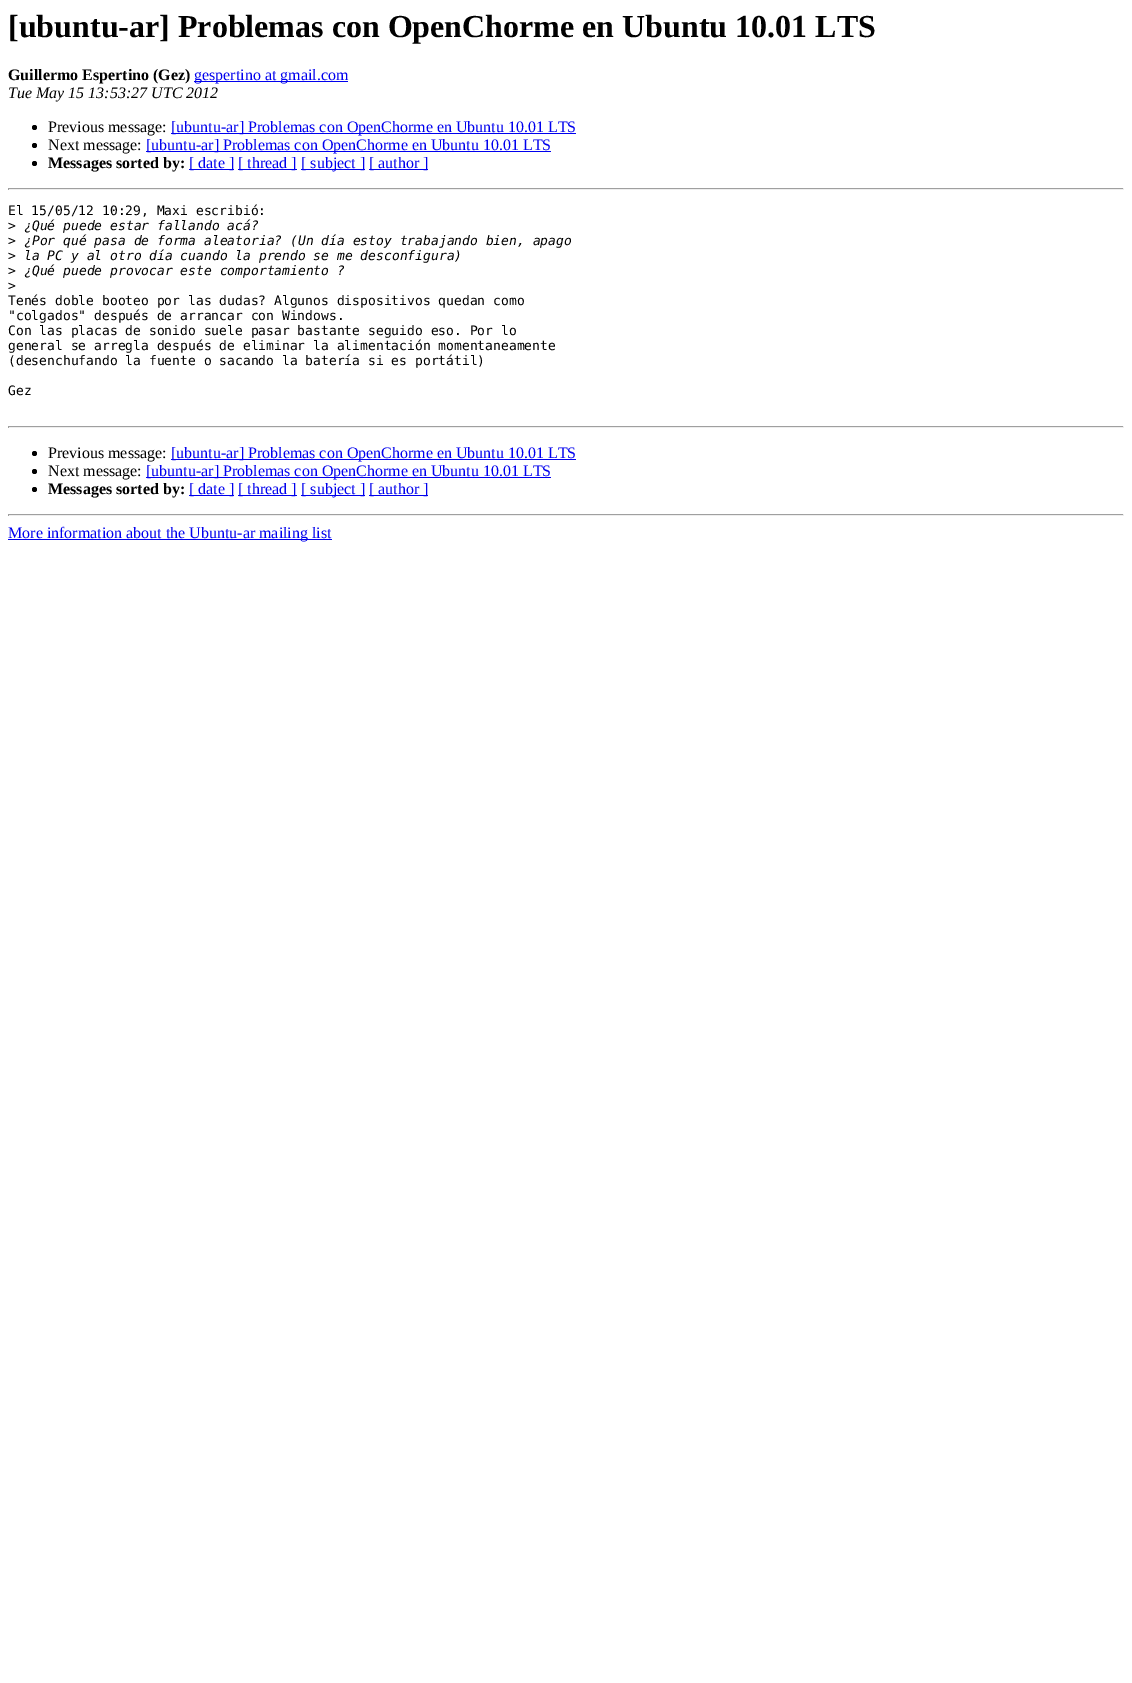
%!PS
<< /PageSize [1132 1683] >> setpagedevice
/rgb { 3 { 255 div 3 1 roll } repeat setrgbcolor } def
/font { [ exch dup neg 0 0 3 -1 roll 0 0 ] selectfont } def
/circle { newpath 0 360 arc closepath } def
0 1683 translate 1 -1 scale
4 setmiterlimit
255 255 255 rgb
0 0 1132 1683 rectfill
0 0 238 rgb
194 81 154 1 rectfill
0 0 0 rgb
34.5 127.5 2.5 circle fill
0 0 238 rgb
171 133 405 1 rectfill
0 0 0 rgb
34.5 145.5 2.5 circle fill
0 0 238 rgb
146 151 405 1 rectfill
0 0 0 rgb
34.5 163.5 2.5 circle fill
[
  [189 169 45 1 0 0 238]
  [238 169 59 1 0 0 238]
  [301 169 64 1 0 0 238]
  [369 169 59 1 0 0 238]
  [8 188 1116 1 159 159 159]
  [1123 188 1 2 238 238 238]
  [8 189 1116 1 238 238 238]
  [8 188 1 2 159 159 159]
  [8 426 1116 1 159 159 159]
  [1123 426 1 2 238 238 238]
  [8 427 1116 1 238 238 238]
  [8 426 1 2 159 159 159]
] { aload pop rgb rectfill } forall
0 0 0 rgb
34.5 453.5 2.5 circle fill
0 0 238 rgb
171 459 405 1 rectfill
0 0 0 rgb
34.5 471.5 2.5 circle fill
0 0 238 rgb
146 477 405 1 rectfill
0 0 0 rgb
34.5 489.5 2.5 circle fill
[
  [189 495 45 1 0 0 238]
  [238 495 59 1 0 0 238]
  [301 495 64 1 0 0 238]
  [369 495 59 1 0 0 238]
  [8 514 1116 1 159 159 159]
  [1123 514 1 2 238 238 238]
  [8 515 1116 1 238 238 238]
  [8 514 1 2 159 159 159]
  [8 539 324 1 0 0 238]
] { aload pop rgb rectfill } forall
/LiberationSerif-Bold 32 font
0 0 0 rgb
8 37 moveto ([ubuntu-ar] Problemas con OpenChorme en Ubuntu 10.01 LTS) show
/LiberationSerif-Bold 16 font
8 80 moveto (Guillermo Espertino \(Gez\)) show
/LiberationSerif-Regular 16 font
0 0 238 rgb
194 80 moveto (gespertino at gmail.com) show
/LiberationSerif-Italic 16 font
0 0 0 rgb
8 98 moveto (Tue May 15 13:53:27 UTC 2012) show
/LiberationSerif-Regular 16 font
48 132 moveto (Previous message:) show
0 0 238 rgb
171 132 moveto ([ubuntu-ar] Problemas con OpenChorme en Ubuntu 10.01 LTS) show
0 0 0 rgb
48 150 moveto (Next message:) show
0 0 238 rgb
146 150 moveto ([ubuntu-ar] Problemas con OpenChorme en Ubuntu 10.01 LTS) show
/LiberationSerif-Bold 16 font
0 0 0 rgb
48 168 moveto (Messages sorted by:) show
/LiberationSerif-Regular 16 font
0 0 238 rgb
[
  [([ date ]) 189 168]
  [([ thread ]) 238 168]
  [([ subject ]) 301 168]
  [([ author ]) 369 168]
] { aload pop moveto show } forall
/DejaVuSansMono-Regular 13 font
0 0 0 rgb
8 215 moveto (El 15/05/12 10:29, Maxi escribió:) show
8 230 moveto (>) show
/DejaVuSansMono-Italic 13 font
24 230 moveto (¿Qué puede estar fallando acá?) show
/DejaVuSansMono-Regular 13 font
8 245 moveto (>) show
/DejaVuSansMono-Italic 13 font
24 245 moveto (¿Por qué pasa de forma aleatoria? \(Un día estoy trabajando bien, apago) show
/DejaVuSansMono-Regular 13 font
8 260 moveto (>) show
/DejaVuSansMono-Italic 13 font
24 260 moveto (la PC y al otro día cuando la prendo se me desconfigura\)) show
/DejaVuSansMono-Regular 13 font
8 275 moveto (>) show
/DejaVuSansMono-Italic 13 font
24 275 moveto (¿Qué puede provocar este comportamiento ?) show
/DejaVuSansMono-Regular 13 font
[
  [(>) 8 290]
  [(Tenés doble booteo por las dudas? Algunos dispositivos quedan como) 8 305]
  [("colgados" después de arrancar con Windows.) 8 320]
  [(Con las placas de sonido suele pasar bastante seguido eso. Por lo) 8 335]
  [(general se arregla después de eliminar la alimentación momentaneamente) 8 350]
  [(\(desenchufando la fuente o sacando la batería si es portátil\)) 8 365]
  [(Gez) 8 395]
] { aload pop moveto show } forall
/LiberationSerif-Regular 16 font
48 458 moveto (Previous message:) show
0 0 238 rgb
171 458 moveto ([ubuntu-ar] Problemas con OpenChorme en Ubuntu 10.01 LTS) show
0 0 0 rgb
48 476 moveto (Next message:) show
0 0 238 rgb
146 476 moveto ([ubuntu-ar] Problemas con OpenChorme en Ubuntu 10.01 LTS) show
/LiberationSerif-Bold 16 font
0 0 0 rgb
48 494 moveto (Messages sorted by:) show
/LiberationSerif-Regular 16 font
0 0 238 rgb
[
  [([ date ]) 189 494]
  [([ thread ]) 238 494]
  [([ subject ]) 301 494]
  [([ author ]) 369 494]
  [(More information about the Ubuntu-ar mailing list) 8 538]
] { aload pop moveto show } forall
showpage
